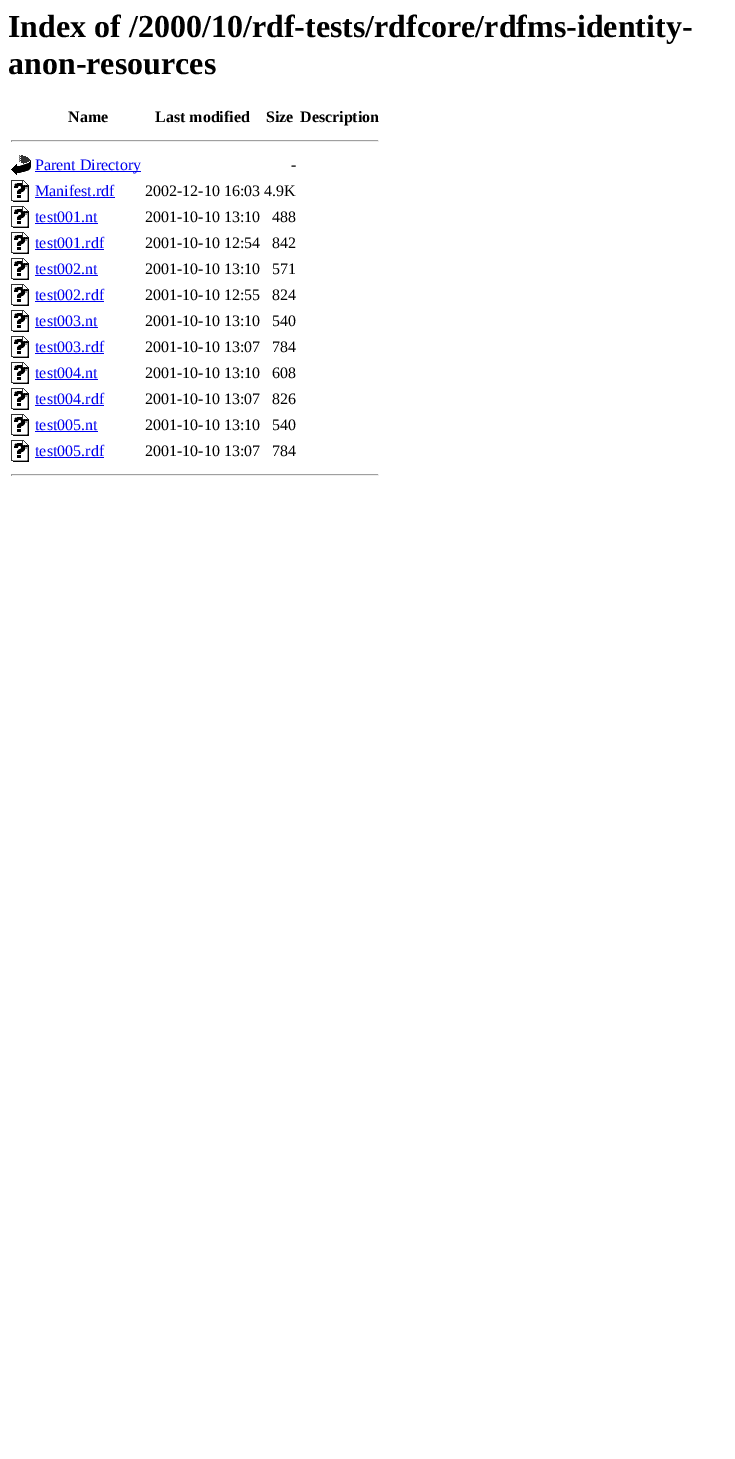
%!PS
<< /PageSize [735 1459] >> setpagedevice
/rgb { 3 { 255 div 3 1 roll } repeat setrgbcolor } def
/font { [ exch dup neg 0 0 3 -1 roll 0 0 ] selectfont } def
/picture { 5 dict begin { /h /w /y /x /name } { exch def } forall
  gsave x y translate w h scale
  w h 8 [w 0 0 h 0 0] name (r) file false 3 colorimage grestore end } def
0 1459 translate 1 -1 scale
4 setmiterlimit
255 255 255 rgb
0 0 735 1459 rectfill
[
  [11 140 368 1 159 159 159]
  [378 140 1 2 238 238 238]
  [11 141 368 1 238 238 238]
  [11 140 1 2 159 159 159]
] { aload pop rgb rectfill } forall
(img/1.rgb) 11 155 20 20 picture
0 0 238 rgb
35 171 106 1 rectfill
(img/2.rgb) 11 180 18 22 picture
35 197 80 1 rectfill
(img/2.rgb) 11 206 18 22 picture
35 223 63 1 rectfill
(img/2.rgb) 11 232 18 22 picture
35 249 69 1 rectfill
(img/2.rgb) 11 258 18 22 picture
35 275 63 1 rectfill
(img/2.rgb) 11 284 18 22 picture
35 301 69 1 rectfill
(img/2.rgb) 11 310 18 22 picture
35 327 63 1 rectfill
(img/2.rgb) 11 336 18 22 picture
35 353 69 1 rectfill
(img/2.rgb) 11 362 18 22 picture
35 379 63 1 rectfill
(img/2.rgb) 11 388 18 22 picture
35 405 69 1 rectfill
(img/2.rgb) 11 414 18 22 picture
35 431 63 1 rectfill
(img/2.rgb) 11 440 18 22 picture
[
  [35 457 69 1 0 0 238]
  [11 474 368 1 159 159 159]
  [378 474 1 2 238 238 238]
  [11 475 368 1 238 238 238]
  [11 474 1 2 159 159 159]
] { aload pop rgb rectfill } forall
/LiberationSerif-Bold 32 font
0 0 0 rgb
8 37 moveto (Index of /2000/10/rdf-tests/rdfcore/rdfms-identity-) show
8 74 moveto (anon-resources) show
/LiberationSerif-Bold 16 font
[
  [(Name) 68 122]
  [(Last modified) 155 122]
  [(Size) 266 122]
  [(Description) 300 122]
] { aload pop moveto show } forall
/LiberationSerif-Regular 16 font
0 0 238 rgb
35 170 moveto (Parent Directory) show
0 0 0 rgb
291 170 moveto (-) show
0 0 238 rgb
35 196 moveto (Manifest.rdf) show
0 0 0 rgb
145 196 moveto (2002-12-10 16:03 4.9K) show
0 0 238 rgb
35 222 moveto (test001.nt) show
0 0 0 rgb
145 222 moveto (2001-10-10 13:10) show
272 222 moveto (488) show
0 0 238 rgb
35 248 moveto (test001.rdf) show
0 0 0 rgb
145 248 moveto (2001-10-10 12:54) show
272 248 moveto (842) show
0 0 238 rgb
35 274 moveto (test002.nt) show
0 0 0 rgb
145 274 moveto (2001-10-10 13:10) show
272 274 moveto (571) show
0 0 238 rgb
35 300 moveto (test002.rdf) show
0 0 0 rgb
145 300 moveto (2001-10-10 12:55) show
272 300 moveto (824) show
0 0 238 rgb
35 326 moveto (test003.nt) show
0 0 0 rgb
145 326 moveto (2001-10-10 13:10) show
272 326 moveto (540) show
0 0 238 rgb
35 352 moveto (test003.rdf) show
0 0 0 rgb
145 352 moveto (2001-10-10 13:07) show
272 352 moveto (784) show
0 0 238 rgb
35 378 moveto (test004.nt) show
0 0 0 rgb
145 378 moveto (2001-10-10 13:10) show
272 378 moveto (608) show
0 0 238 rgb
35 404 moveto (test004.rdf) show
0 0 0 rgb
145 404 moveto (2001-10-10 13:07) show
272 404 moveto (826) show
0 0 238 rgb
35 430 moveto (test005.nt) show
0 0 0 rgb
145 430 moveto (2001-10-10 13:10) show
272 430 moveto (540) show
0 0 238 rgb
35 456 moveto (test005.rdf) show
0 0 0 rgb
145 456 moveto (2001-10-10 13:07) show
272 456 moveto (784) show
showpage
